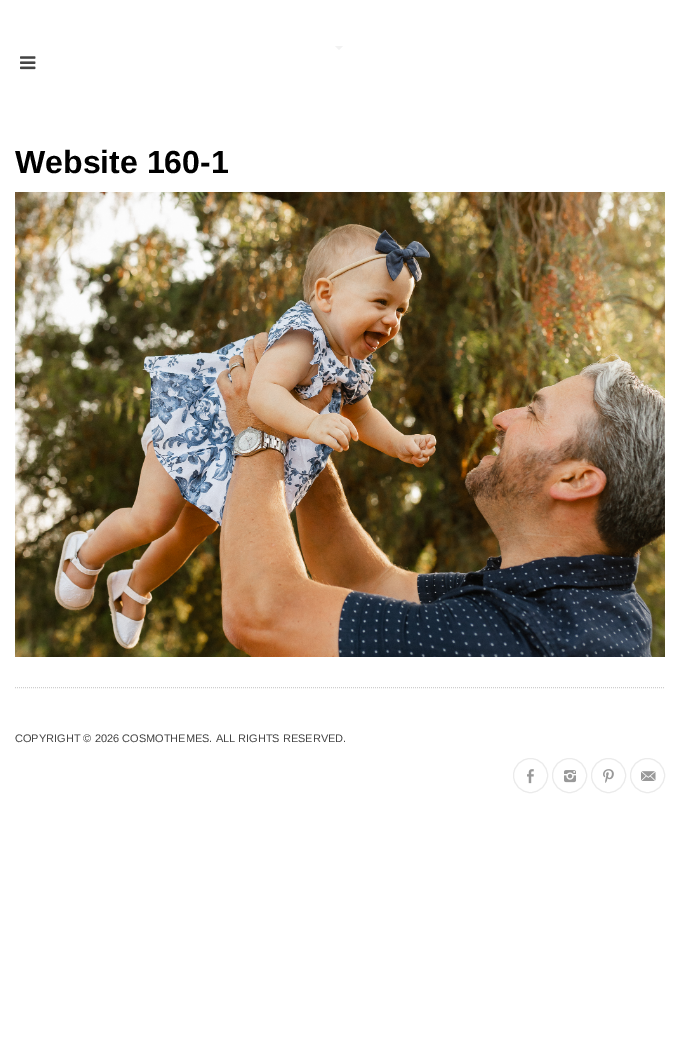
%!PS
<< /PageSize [680 1053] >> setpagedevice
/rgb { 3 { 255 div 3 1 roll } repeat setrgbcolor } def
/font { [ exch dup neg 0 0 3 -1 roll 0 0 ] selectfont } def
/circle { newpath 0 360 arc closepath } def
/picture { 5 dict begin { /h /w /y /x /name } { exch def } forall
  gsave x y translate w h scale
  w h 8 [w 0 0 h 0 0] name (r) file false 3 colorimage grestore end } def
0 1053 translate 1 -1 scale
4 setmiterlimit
255 255 255 rgb
0 0 680 1053 rectfill
242 242 242 rgb
335 46 moveto 343 46 lineto 339 50 lineto closepath fill
(img/1.rgb) 20 56 16 14 picture
(img/2.rgb) 15 192 650 465 picture
206 206 206 rgb
[1 1] 0 setdash
15 687.5 moveto 665 687.5 lineto stroke
235 235 235 rgb
[] 0 setdash
530.5 775.5 17 circle stroke
(img/3.rgb) 527 769 7 15 picture
569.5 775.5 17 circle stroke
(img/4.rgb) 564 770 12 13 picture
608.5 775.5 17 circle stroke
(img/5.rgb) 603 769 11 14 picture
647.5 775.5 17 circle stroke
(img/6.rgb) 641 771 15 10 picture
/LiberationSans-Bold 32 font
0 0 0 rgb
15 173 moveto (Website 160-1) show
/LiberationSans-Regular 11 font
68 68 68 rgb
15 742 moveto (COPYRIGHT © 2026 COSMOTHEMES. ALL RIGHTS RESERVED.) show
showpage
